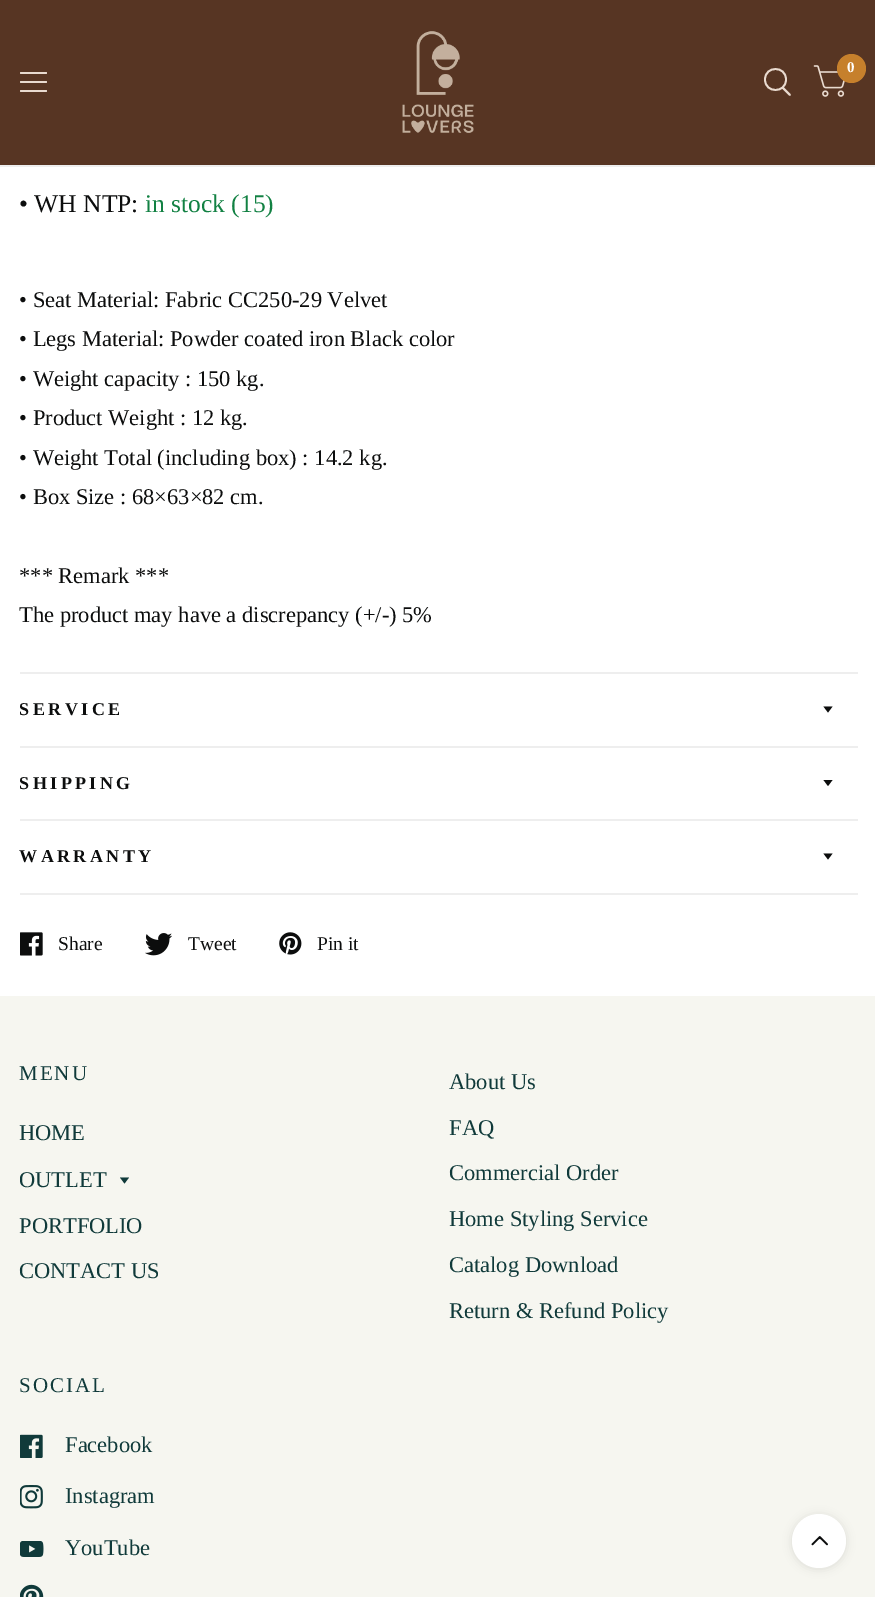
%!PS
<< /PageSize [875 1597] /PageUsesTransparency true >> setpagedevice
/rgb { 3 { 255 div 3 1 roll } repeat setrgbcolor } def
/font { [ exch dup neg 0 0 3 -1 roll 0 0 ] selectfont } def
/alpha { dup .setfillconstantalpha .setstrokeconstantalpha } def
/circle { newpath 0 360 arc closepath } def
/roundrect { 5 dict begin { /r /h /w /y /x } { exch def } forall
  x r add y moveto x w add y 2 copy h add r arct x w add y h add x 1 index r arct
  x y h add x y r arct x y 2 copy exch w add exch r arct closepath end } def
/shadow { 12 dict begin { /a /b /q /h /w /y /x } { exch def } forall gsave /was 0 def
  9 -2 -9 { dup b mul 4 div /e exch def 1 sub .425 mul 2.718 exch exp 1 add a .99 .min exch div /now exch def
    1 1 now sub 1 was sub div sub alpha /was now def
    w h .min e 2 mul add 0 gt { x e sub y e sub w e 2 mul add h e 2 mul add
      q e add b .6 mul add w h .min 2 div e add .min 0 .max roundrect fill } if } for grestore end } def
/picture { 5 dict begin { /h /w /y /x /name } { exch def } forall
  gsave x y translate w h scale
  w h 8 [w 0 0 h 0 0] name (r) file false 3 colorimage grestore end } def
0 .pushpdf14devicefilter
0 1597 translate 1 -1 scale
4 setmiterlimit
255 255 255 rgb
0 0 875 1597 rectfill
87 53 35 rgb
0 0 875 165 rectfill
238 238 238 rgb
0 165 875 2 rectfill
(img/1.rgb) 402 31 72 102 picture
233 218 207 rgb
1.8 setlinewidth
1 setlinecap
1 setlinejoin
783 88 moveto 790 95 lineto 786 79.5 moveto 786 93.5 765 93.5 765 79.5 curveto 765 65.5 786 65.5 786 79.5 curveto closepath stroke
(img/2.rgb) 813 65 32 32 picture
198 128 44 rgb
851.5 68.5 14.5 circle fill
233 218 207 rgb
20 72 27 2 1 roundrect fill
20 81 27 2 1 roundrect fill
20 90 27 2 1 roundrect fill
238 238 238 rgb
20 672 838 2 rectfill
20 746 838 2 rectfill
12 13 13 rgb
823.5 706.5 moveto 832.5 706.5 lineto 828 712.5 lineto closepath fill
238 238 238 rgb
20 819 838 2 rectfill
12 13 13 rgb
823.5 780 moveto 832.5 780 lineto 828 786 lineto closepath fill
238 238 238 rgb
20 893 838 2 rectfill
12 13 13 rgb
823.5 853.5 moveto 832.5 853.5 lineto 828 859.5 lineto closepath fill
(img/3.rgb) 20 932 23 24 picture
(img/4.rgb) 145 933 27 23 picture
(img/5.rgb) 279 932 23 23 picture
246 246 240 rgb
0 996 875 601 rectfill
16 58 58 rgb
120 1177.5 moveto 129 1177.5 lineto 124.5 1183.5 lineto closepath fill
(img/6.rgb) 20 1434 23 24 picture
(img/7.rgb) 20 1485 23 24 picture
(img/8.rgb) 20 1541 24 16 picture
(img/9.rgb) 20 1584 24 13 picture
0 0 0 rgb
792 1515 54 54 27 4.5 0.1 shadow
255 255 255 rgb
819 1541 27 circle fill
(img/10.rgb) 811 1536 17 10 picture
/LiberationSerif-Bold 15 font
847 72 moveto (0) show
/LiberationSerif-Regular 25.5 font
12 13 13 rgb
19 212 moveto (• WH NTP:) show
18 129 67 rgb
145 212 moveto (in stock \(15\)) show
/LiberationSerif-Regular 22.5 font
12 13 13 rgb
[
  [(• Seat Material: Fabric CC250-29 Velvet) 19 307]
  [(• Legs Material: Powder coated iron Black color) 19 346]
  [(• Weight capacity : 150 kg.) 19 386]
  [(• Product Weight : 12 kg.) 19 425]
  [(• Weight Total \(including box\) : 14.2 kg.) 19 465]
  [(• Box Size : 68×63×82 cm.) 19 504]
  [(*** Remark ***) 19 583]
  [(The product may have a discrepancy \(+/-\) 5%) 19 622]
] { aload pop moveto show } forall
/LiberationSerif-Bold 18 font
19 715 moveto 3.5 0 (SERVICE) ashow
19 789 moveto 3.5 0 (SHIPPING) ashow
19 862 moveto 3.5 0 (WARRANTY) ashow
/LiberationSerif-Regular 19.5 font
[
  [(Share) 58 950]
  [(Tweet) 188 950]
  [(Pin it) 317 950]
] { aload pop moveto show } forall
/LiberationSerif-Regular 21 font
16 58 58 rgb
19 1080 moveto 2 0 (MENU) ashow
/LiberationSerif-Regular 22.5 font
[
  [(HOME) 19 1140]
  [(OUTLET) 19 1187]
  [(PORTFOLIO) 19 1233]
  [(CONTACT US) 19 1278]
  [(About Us) 449 1089]
  [(FAQ) 449 1135]
  [(Commercial Order) 449 1180]
  [(Home Styling Service) 449 1226]
  [(Catalog Download) 449 1272]
  [(Return & Refund Policy) 449 1318]
] { aload pop moveto show } forall
/LiberationSerif-Regular 21 font
19 1392 moveto 2 0 (SOCIAL) ashow
/LiberationSerif-Regular 22.5 font
[
  [(Facebook) 65 1452]
  [(Instagram) 65 1503]
  [(YouTube) 65 1555]
] { aload pop moveto show } forall
.poppdf14devicefilter showpage
